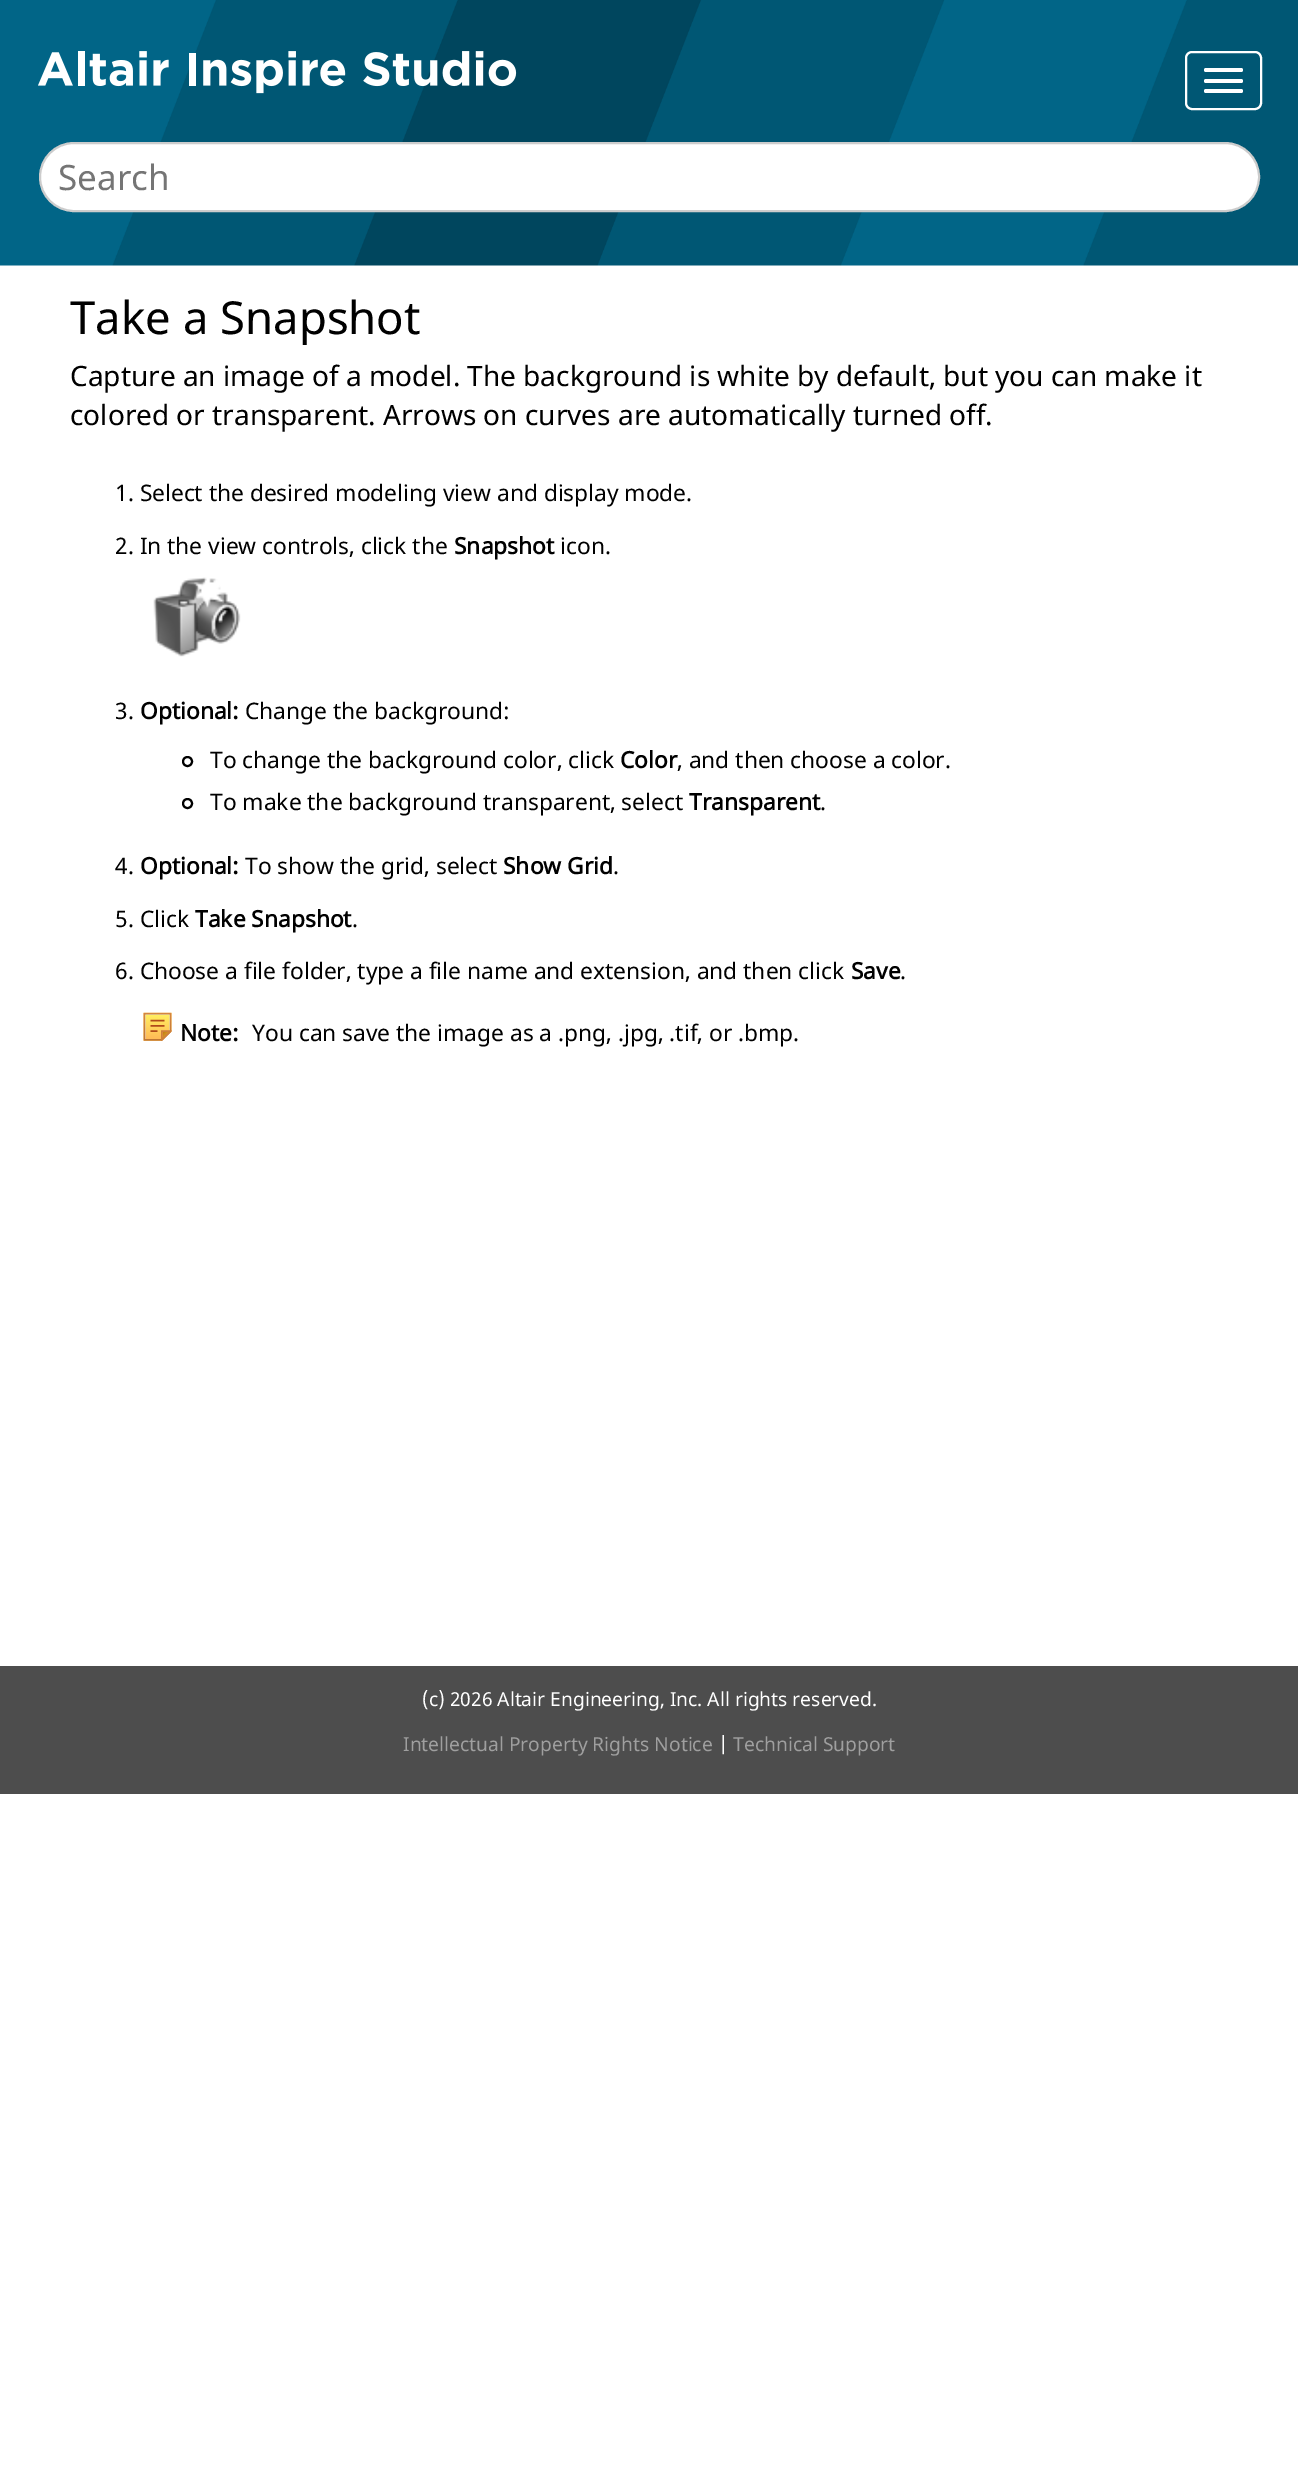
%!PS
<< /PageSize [1298 2482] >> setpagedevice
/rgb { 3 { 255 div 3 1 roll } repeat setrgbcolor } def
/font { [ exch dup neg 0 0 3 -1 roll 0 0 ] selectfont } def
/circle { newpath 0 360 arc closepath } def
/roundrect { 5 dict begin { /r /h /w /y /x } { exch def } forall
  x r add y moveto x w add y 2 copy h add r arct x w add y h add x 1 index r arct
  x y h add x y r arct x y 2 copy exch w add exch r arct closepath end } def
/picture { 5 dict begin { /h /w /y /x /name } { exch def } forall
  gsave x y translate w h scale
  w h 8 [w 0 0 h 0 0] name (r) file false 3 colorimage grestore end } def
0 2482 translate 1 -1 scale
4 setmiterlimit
255 255 255 rgb
0 0 1298 2482 rectfill
(img/1.rgb) 0 0 1298 266 picture
(img/2.rgb) 38 51 479 43 picture
2 setlinewidth
1186 52 75 57 6 roundrect stroke
1204 68 39 4 2 roundrect fill
1204 79 39 4 2 roundrect fill
1204 89 39 4 2 roundrect fill
40 143 1219 68 34 roundrect gsave fill grestore
204 204 204 rgb
stroke
(img/3.rgb) 153 577 88 80 picture
0 0 0 rgb
187.5 761.5 4.5 circle stroke
187.5 803.5 4.5 circle stroke
(img/4.rgb) 143 1012 29 29 picture
77 77 77 rgb
0 1666 1298 128 rectfill
/NotoSans-Regular 35 font
117 117 117 rgb
58 190 moveto (Search) show
/NotoSans-Regular 45.5 font
0 0 0 rgb
70 334 moveto (Take a Snapshot) show
/NotoSans-Regular 28 font
70 386 moveto (Capture an image of a model. The background is white by default, but you can make it) show
70 425 moveto (colored or transparent. Arrows on curves are automatically turned off.) show
/NotoSans-Regular 22.75 font
115 501 moveto (1. Select the desired modeling view and display mode.) show
115 554 moveto (2. In the view controls, click the) show
/NotoSans-Bold 22.75 font
454 554 moveto (Snapshot) show
/NotoSans-Regular 22.75 font
560 554 moveto (icon.) show
115 719 moveto (3.) show
/NotoSans-Bold 22.75 font
140 719 moveto (Optional:) show
/NotoSans-Regular 22.75 font
245 719 moveto (Change the background:) show
210 768 moveto (To change the background color, click) show
/NotoSans-Bold 22.75 font
620 768 moveto (Color) show
/NotoSans-Regular 22.75 font
677 768 moveto (, and then choose a color.) show
210 810 moveto (To make the background transparent, select) show
/NotoSans-Bold 22.75 font
689 810 moveto (Transparent) show
/NotoSans-Regular 22.75 font
820 810 moveto (.) show
115 874 moveto (4.) show
/NotoSans-Bold 22.75 font
140 874 moveto (Optional:) show
/NotoSans-Regular 22.75 font
245 874 moveto (To show the grid, select) show
/NotoSans-Bold 22.75 font
503 874 moveto (Show Grid) show
/NotoSans-Regular 22.75 font
613 874 moveto (.) show
115 927 moveto (5. Click) show
/NotoSans-Bold 22.75 font
195 927 moveto (Take Snapshot) show
/NotoSans-Regular 22.75 font
352 927 moveto (.) show
115 979 moveto (6. Choose a file folder, type a file name and extension, and then click) show
/NotoSans-Bold 22.75 font
851 979 moveto (Save) show
/NotoSans-Regular 22.75 font
900 979 moveto (.) show
/NotoSans-Bold 22.75 font
180 1041 moveto (Note:) show
/NotoSans-Regular 22.75 font
252 1041 moveto (You can save the image as a .png, .jpg, .tif, or .bmp.) show
/NotoSans-Regular 19.25 font
255 255 255 rgb
422 1706 moveto (\(c\) 2026 Altair Engineering, Inc. All rights reserved.) show
159 159 159 rgb
403 1751 moveto (Intellectual Property Rights Notice) show
255 255 255 rgb
718 1751 moveto (|) show
159 159 159 rgb
733 1751 moveto (Technical Support) show
showpage
